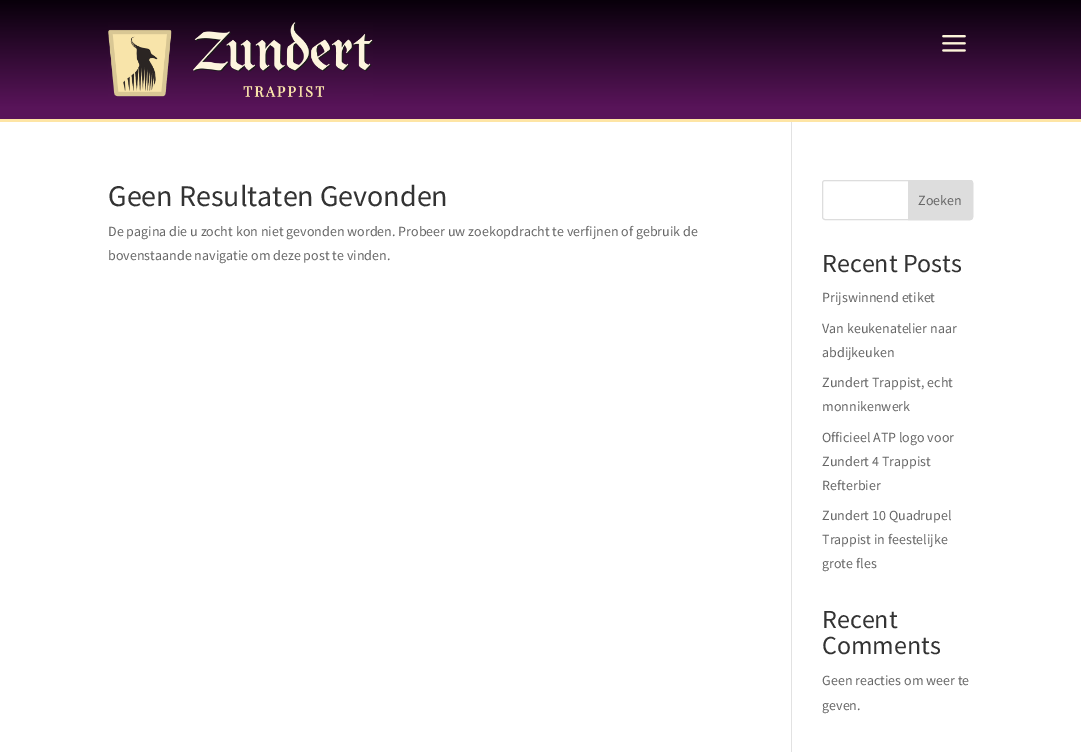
%!PS
<< /PageSize [1081 752] >> setpagedevice
/rgb { 3 { 255 div 3 1 roll } repeat setrgbcolor } def
/font { [ exch dup neg 0 0 3 -1 roll 0 0 ] selectfont } def
/roundrect { 5 dict begin { /r /h /w /y /x } { exch def } forall
  x r add y moveto x w add y 2 copy h add r arct x w add y h add x 1 index r arct
  x y h add x y r arct x y 2 copy exch w add exch r arct closepath end } def
/picture { 5 dict begin { /h /w /y /x /name } { exch def } forall
  gsave x y translate w h scale
  w h 8 [w 0 0 h 0 0] name (r) file false 3 colorimage grestore end } def
0 752 translate 1 -1 scale
4 setmiterlimit
255 255 255 rgb
0 0 1081 752 rectfill
gsave 0 0 moveto 1081 0 lineto 1081 119 lineto 0 119 lineto closepath clip newpath
<< /ShadingType 2 /ColorSpace /DeviceRGB /Coords [541 0 541 119] /Extend [true true] /Function << /FunctionType 3 /Domain [0 1] /Functions [<< /FunctionType 2 /Domain [0 1] /C0 [0.031 0 0.039] /C1 [0.345 0.078 0.349] /N 1 >> << /FunctionType 2 /Domain [0 1] /C0 [0.345 0.078 0.349] /C1 [0.345 0.078 0.349] /N 1 >>] /Bounds [0.9] /Encode [0 1 0 1] >> >> shfill grestore
254 229 165 rgb
0 119 1081 3 rectfill
(img/1.rgb) 108 22 265 75 picture
(img/2.rgb) 942 35 24 17 picture
226 226 226 rgb
791 122 1 630 rectfill
221 221 221 rgb
822.5 180.5 150 39 2.5 roundrect stroke
908.5 180.5 moveto 970 180.5 lineto 971.5 180.5 972.5 181.5 972.5 183 curveto 972.5 217 lineto 972.5 218.5 971.5 219.5 970 219.5 curveto 908.5 219.5 lineto closepath gsave fill grestore
stroke
/SourceSansPro-Regular 30 font
51 51 51 rgb
108 206 moveto (Geen Resultaten Gevonden) show
/SourceSansPro-Regular 14 font
102 102 102 rgb
[
  [(De pagina die u zocht kon niet gevonden worden. Probeer uw zoekopdracht te verfijnen of gebruik de) 108 236]
  [(bovenstaande navigatie om deze post te vinden.) 108 260]
  [(Zoeken) 918 205]
] { aload pop moveto show } forall
/SourceSansPro-Regular 26 font
51 51 51 rgb
822 272 moveto (Recent Posts) show
/SourceSansPro-Regular 14 font
102 102 102 rgb
[
  [(Prijswinnend etiket) 822 302]
  [(Van keukenatelier naar) 822 333]
  [(abdijkeuken) 822 357]
  [(Zundert Trappist, echt) 822 387]
  [(monnikenwerk) 822 411]
  [(Officieel ATP logo voor) 822 442]
  [(Zundert 4 Trappist) 822 466]
  [(Refterbier) 822 490]
  [(Zundert 10 Quadrupel) 822 520]
  [(Trappist in feestelijke) 822 544]
  [(grote fles) 822 568]
] { aload pop moveto show } forall
/SourceSansPro-Regular 26 font
51 51 51 rgb
822 628 moveto (Recent) show
822 654 moveto (Comments) show
/SourceSansPro-Regular 14 font
102 102 102 rgb
822 685 moveto (Geen reacties om weer te) show
822 710 moveto (geven.) show
showpage
